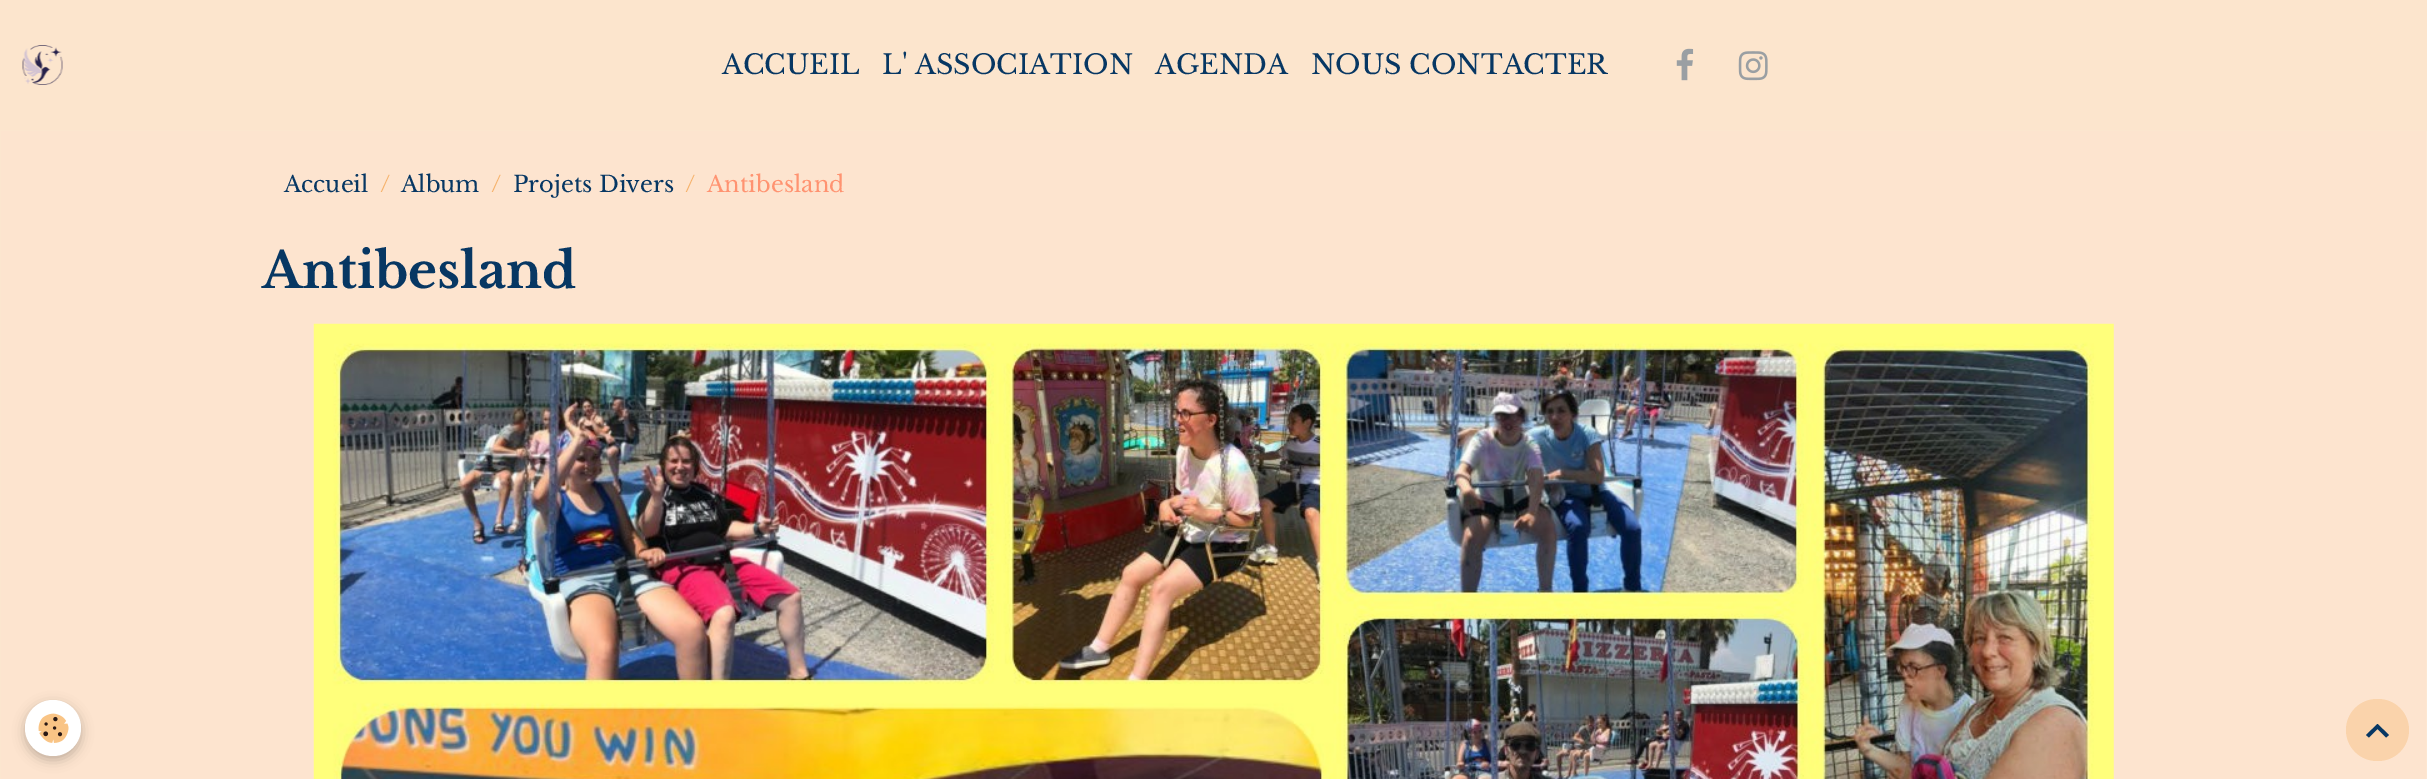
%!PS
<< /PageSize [2427 779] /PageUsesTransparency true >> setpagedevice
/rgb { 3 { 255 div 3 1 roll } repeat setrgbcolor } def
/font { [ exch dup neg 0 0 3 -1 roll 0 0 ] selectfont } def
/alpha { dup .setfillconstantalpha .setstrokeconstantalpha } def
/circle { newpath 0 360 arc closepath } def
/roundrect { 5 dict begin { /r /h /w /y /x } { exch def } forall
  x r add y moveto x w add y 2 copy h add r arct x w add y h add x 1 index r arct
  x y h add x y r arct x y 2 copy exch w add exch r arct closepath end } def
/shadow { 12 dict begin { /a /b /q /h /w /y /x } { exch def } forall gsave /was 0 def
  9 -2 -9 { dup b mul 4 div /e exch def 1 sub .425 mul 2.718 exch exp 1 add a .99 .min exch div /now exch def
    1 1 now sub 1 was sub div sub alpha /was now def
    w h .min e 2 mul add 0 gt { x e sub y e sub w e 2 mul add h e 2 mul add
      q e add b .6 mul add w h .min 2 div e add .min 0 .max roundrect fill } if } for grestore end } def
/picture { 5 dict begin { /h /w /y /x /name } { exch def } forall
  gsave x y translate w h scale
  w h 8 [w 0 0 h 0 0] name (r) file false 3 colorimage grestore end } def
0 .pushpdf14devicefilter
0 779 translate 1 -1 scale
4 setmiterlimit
253 231 210 rgb
0 0 2427 779 rectfill
252 229 205 rgb
0 0 2427 130 rectfill
(img/1.rgb) 22 45 41 40 picture
(img/2.rgb) 1676 48 18 33 picture
(img/3.rgb) 1738 51 30 30 picture
252 230 207 rgb
0.5 130.5 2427 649 rectstroke
253 228 207 rgb
1 131 2425 648 rectfill
(img/4.rgb) 313 323 1801 456 picture
0 0 0 rgb
25 704 56 56 28 6 0.24 shadow
255 255 255 rgb
53 728 28 circle fill
(img/5.rgb) 38 713 31 30 picture
250 211 171 rgb
2346 699 63 62 31 roundrect fill
7 55 99 rgb
2377.5 724 moveto 2389 735 lineto 2386 737.5 lineto 2377.5 729 lineto 2369 737.5 lineto 2366 735 lineto closepath fill
/LibreBaskerville-Regular 27 font
[
  [(ACCUEIL) 722 74]
  [(L' ASSOCIATION) 882 74]
  [(AGENDA) 1155 74]
  [(NOUS CONTACTER) 1311 74]
] { aload pop moveto show } forall
/LibreBaskerville-Regular 22.5 font
284 192 moveto (Accueil) show
246 178 107 rgb
380 192 moveto (/) show
7 55 99 rgb
401 192 moveto (Album) show
246 178 107 rgb
491 192 moveto (/) show
7 55 99 rgb
513 192 moveto (Projets Divers) show
246 178 107 rgb
685 192 moveto (/) show
255 147 113 rgb
707 192 moveto (Antibesland) show
/LibreBaskerville-Bold 49.5 font
7 55 99 rgb
262 288 moveto (Antibesland) show
.poppdf14devicefilter showpage
